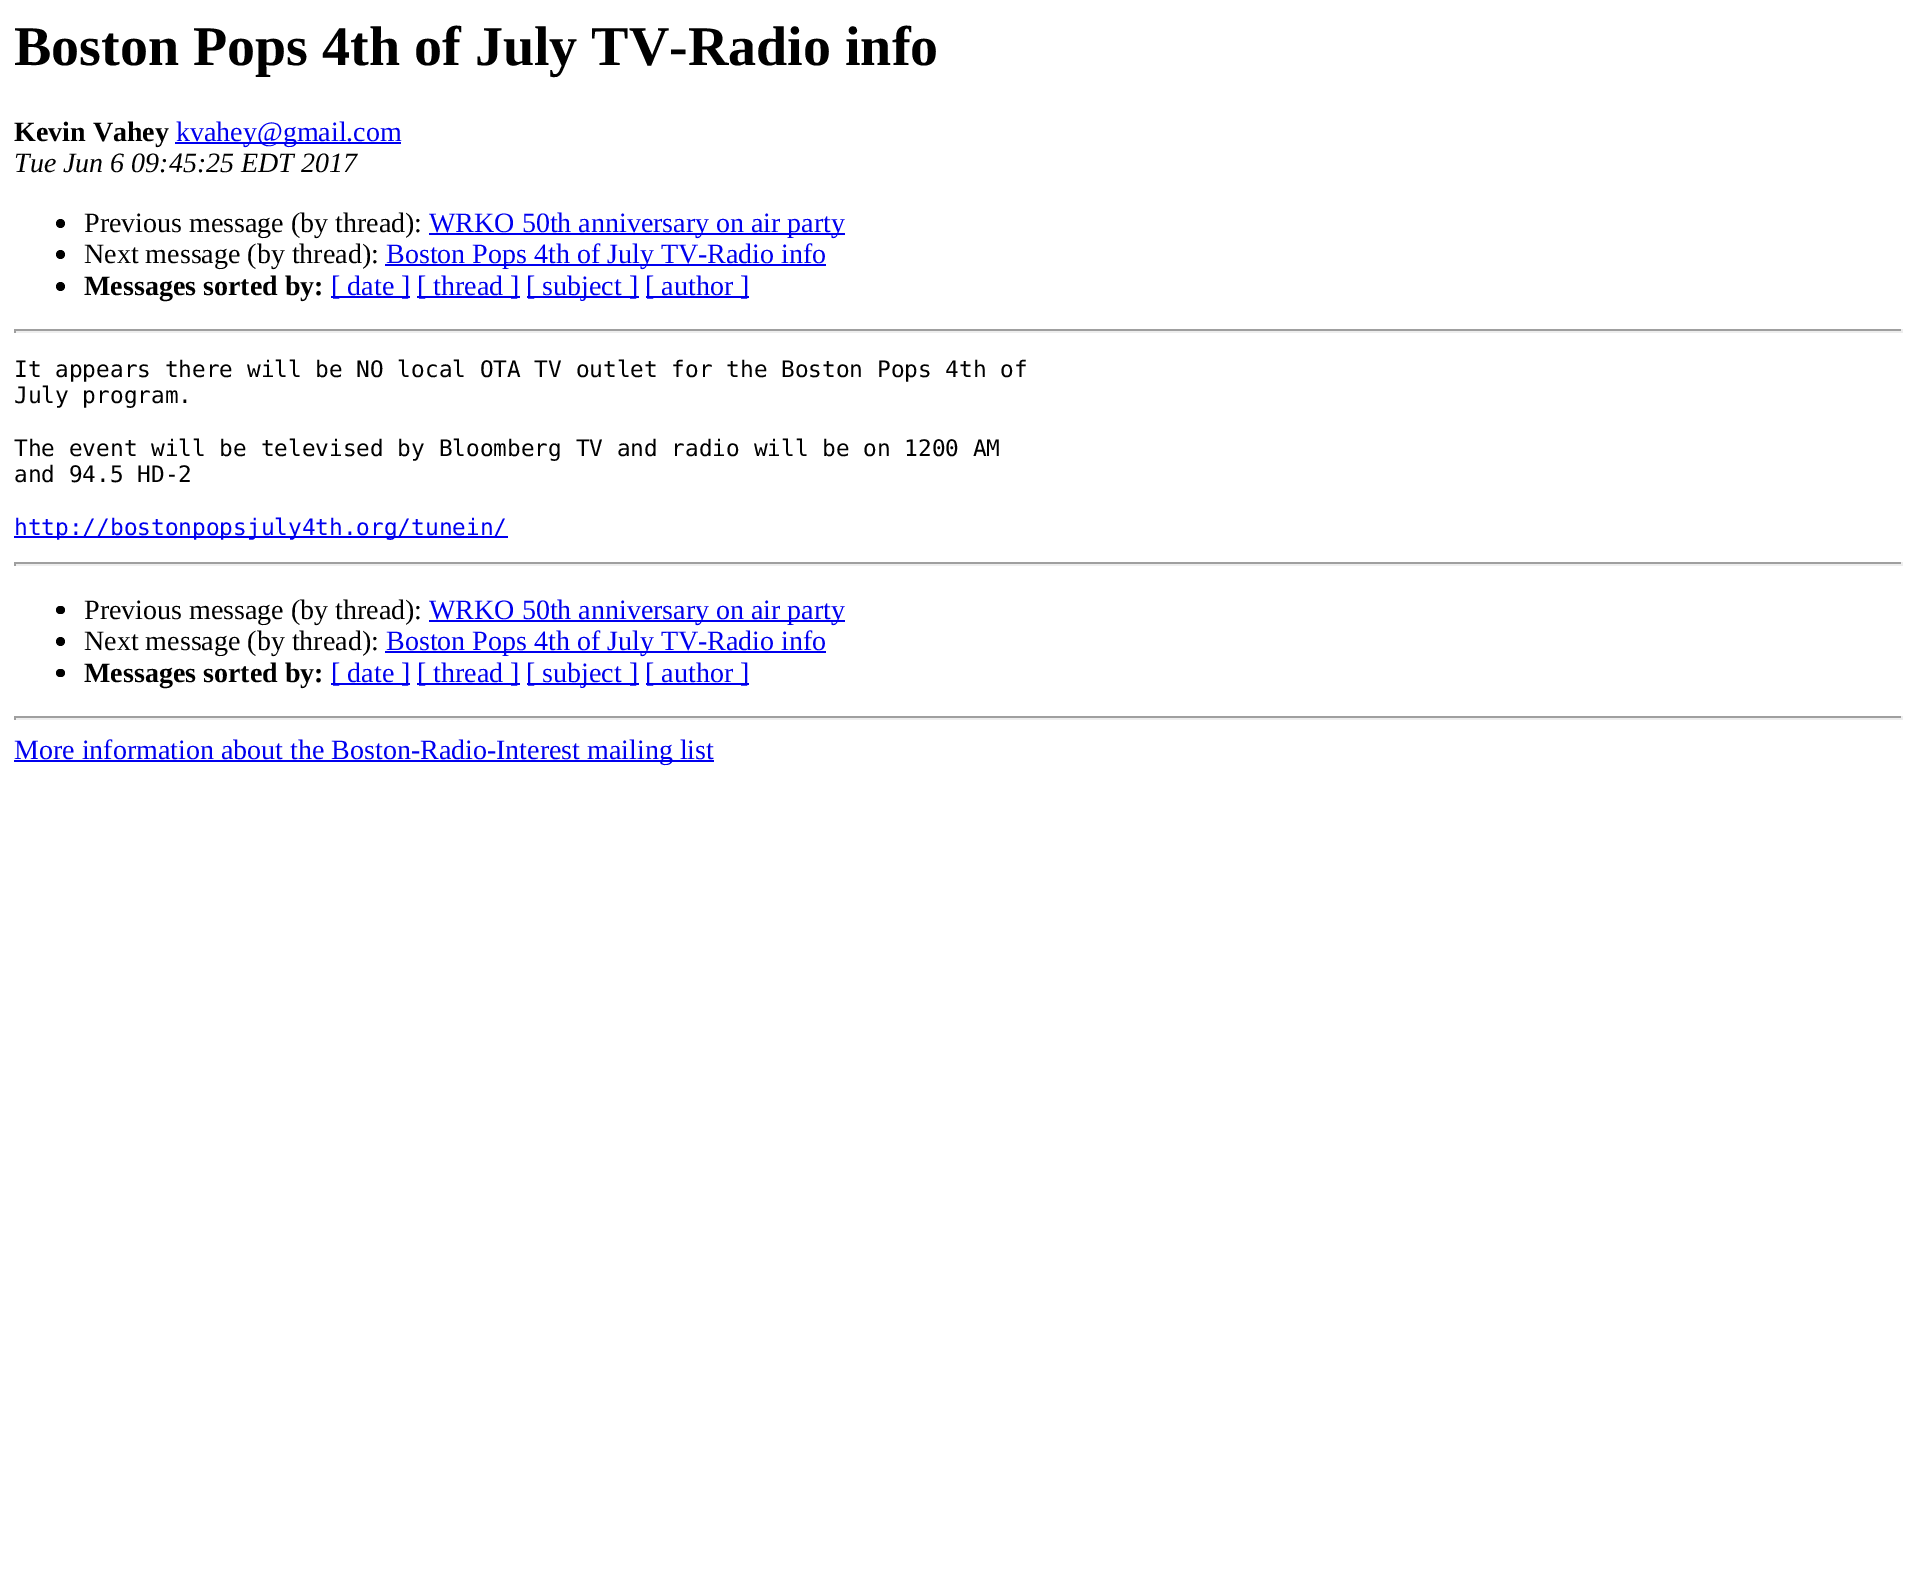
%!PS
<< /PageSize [1915 1570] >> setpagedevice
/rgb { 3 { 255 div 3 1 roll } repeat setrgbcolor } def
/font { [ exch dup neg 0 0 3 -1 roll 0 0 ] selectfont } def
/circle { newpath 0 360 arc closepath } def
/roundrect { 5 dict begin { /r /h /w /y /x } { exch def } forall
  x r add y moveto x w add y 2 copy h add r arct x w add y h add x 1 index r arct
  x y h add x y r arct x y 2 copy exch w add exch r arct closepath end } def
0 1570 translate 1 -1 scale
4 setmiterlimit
255 255 255 rgb
0 0 1915 1570 rectfill
0 0 238 rgb
175 142 226 2 rectfill
0 0 0 rgb
60.5 223.5 4.5 circle fill
0 0 238 rgb
429 233 416 2 rectfill
0 0 0 rgb
60.5 254.5 4.5 circle fill
0 0 238 rgb
385 264 441 2 rectfill
0 0 0 rgb
60.5 286.5 4.5 circle fill
[
  [331 296 79 2 0 0 238]
  [417 296 103 2 0 0 238]
  [527 296 112 2 0 0 238]
  [646 296 103 2 0 0 238]
  [14 329 1888 2 159 159 159]
  [1901 329 2 4 238 238 238]
  [14 331 1888 2 238 238 238]
  [14 329 2 4 159 159 159]
  [14 536 494 2 0 0 238]
  [14 562 1888 2 159 159 159]
  [1901 562 2 4 238 238 238]
  [14 564 1888 2 238 238 238]
  [14 562 2 4 159 159 159]
] { aload pop rgb rectfill } forall
0 0 0 rgb
56 606 9 8 4 roundrect fill
0 0 238 rgb
429 620 416 2 rectfill
0 0 0 rgb
60.5 641.5 4.5 circle fill
0 0 238 rgb
385 651 441 2 rectfill
0 0 0 rgb
56 669 9 8 4 roundrect fill
[
  [331 683 79 2 0 0 238]
  [417 683 103 2 0 0 238]
  [527 683 112 2 0 0 238]
  [646 683 103 2 0 0 238]
  [14 716 1888 2 159 159 159]
  [1901 716 2 4 238 238 238]
  [14 718 1888 2 238 238 238]
  [14 716 2 4 159 159 159]
  [14 760 700 2 0 0 238]
] { aload pop rgb rectfill } forall
/LiberationSerif-Bold 56 font
0 0 0 rgb
14 65 moveto (Boston Pops 4th of July TV-Radio info) show
/LiberationSerif-Bold 28 font
14 141 moveto (Kevin Vahey) show
/LiberationSerif-Regular 28 font
0 0 238 rgb
176 141 moveto (kvahey@gmail.com) show
/LiberationSerif-Italic 28 font
0 0 0 rgb
14 172 moveto (Tue Jun 6 09:45:25 EDT 2017) show
/LiberationSerif-Regular 28 font
84 232 moveto (Previous message \(by thread\):) show
0 0 238 rgb
429 232 moveto (WRKO 50th anniversary on air party) show
0 0 0 rgb
84 263 moveto (Next message \(by thread\):) show
0 0 238 rgb
386 263 moveto (Boston Pops 4th of July TV-Radio info) show
/LiberationSerif-Bold 28 font
0 0 0 rgb
84 295 moveto (Messages sorted by:) show
/LiberationSerif-Regular 28 font
0 0 238 rgb
[
  [([ date ]) 331 295]
  [([ thread ]) 417 295]
  [([ subject ]) 526 295]
  [([ author ]) 645 295]
] { aload pop moveto show } forall
/DejaVuSansMono-Regular 22.75 font
0 0 0 rgb
[
  [(It appears there will be NO local OTA TV outlet for the Boston Pops 4th of) 14 377]
  [(July program.) 14 403]
  [(The event will be televised by Bloomberg TV and radio will be on 1200 AM) 14 456]
  [(and 94.5 HD-2) 14 482]
] { aload pop moveto show } forall
0 0 238 rgb
14 535 moveto (http://bostonpopsjuly4th.org/tunein/) show
/LiberationSerif-Regular 28 font
0 0 0 rgb
84 619 moveto (Previous message \(by thread\):) show
0 0 238 rgb
429 619 moveto (WRKO 50th anniversary on air party) show
0 0 0 rgb
84 650 moveto (Next message \(by thread\):) show
0 0 238 rgb
386 650 moveto (Boston Pops 4th of July TV-Radio info) show
/LiberationSerif-Bold 28 font
0 0 0 rgb
84 682 moveto (Messages sorted by:) show
/LiberationSerif-Regular 28 font
0 0 238 rgb
[
  [([ date ]) 331 682]
  [([ thread ]) 417 682]
  [([ subject ]) 526 682]
  [([ author ]) 645 682]
  [(More information about the Boston-Radio-Interest mailing list) 14 759]
] { aload pop moveto show } forall
showpage
